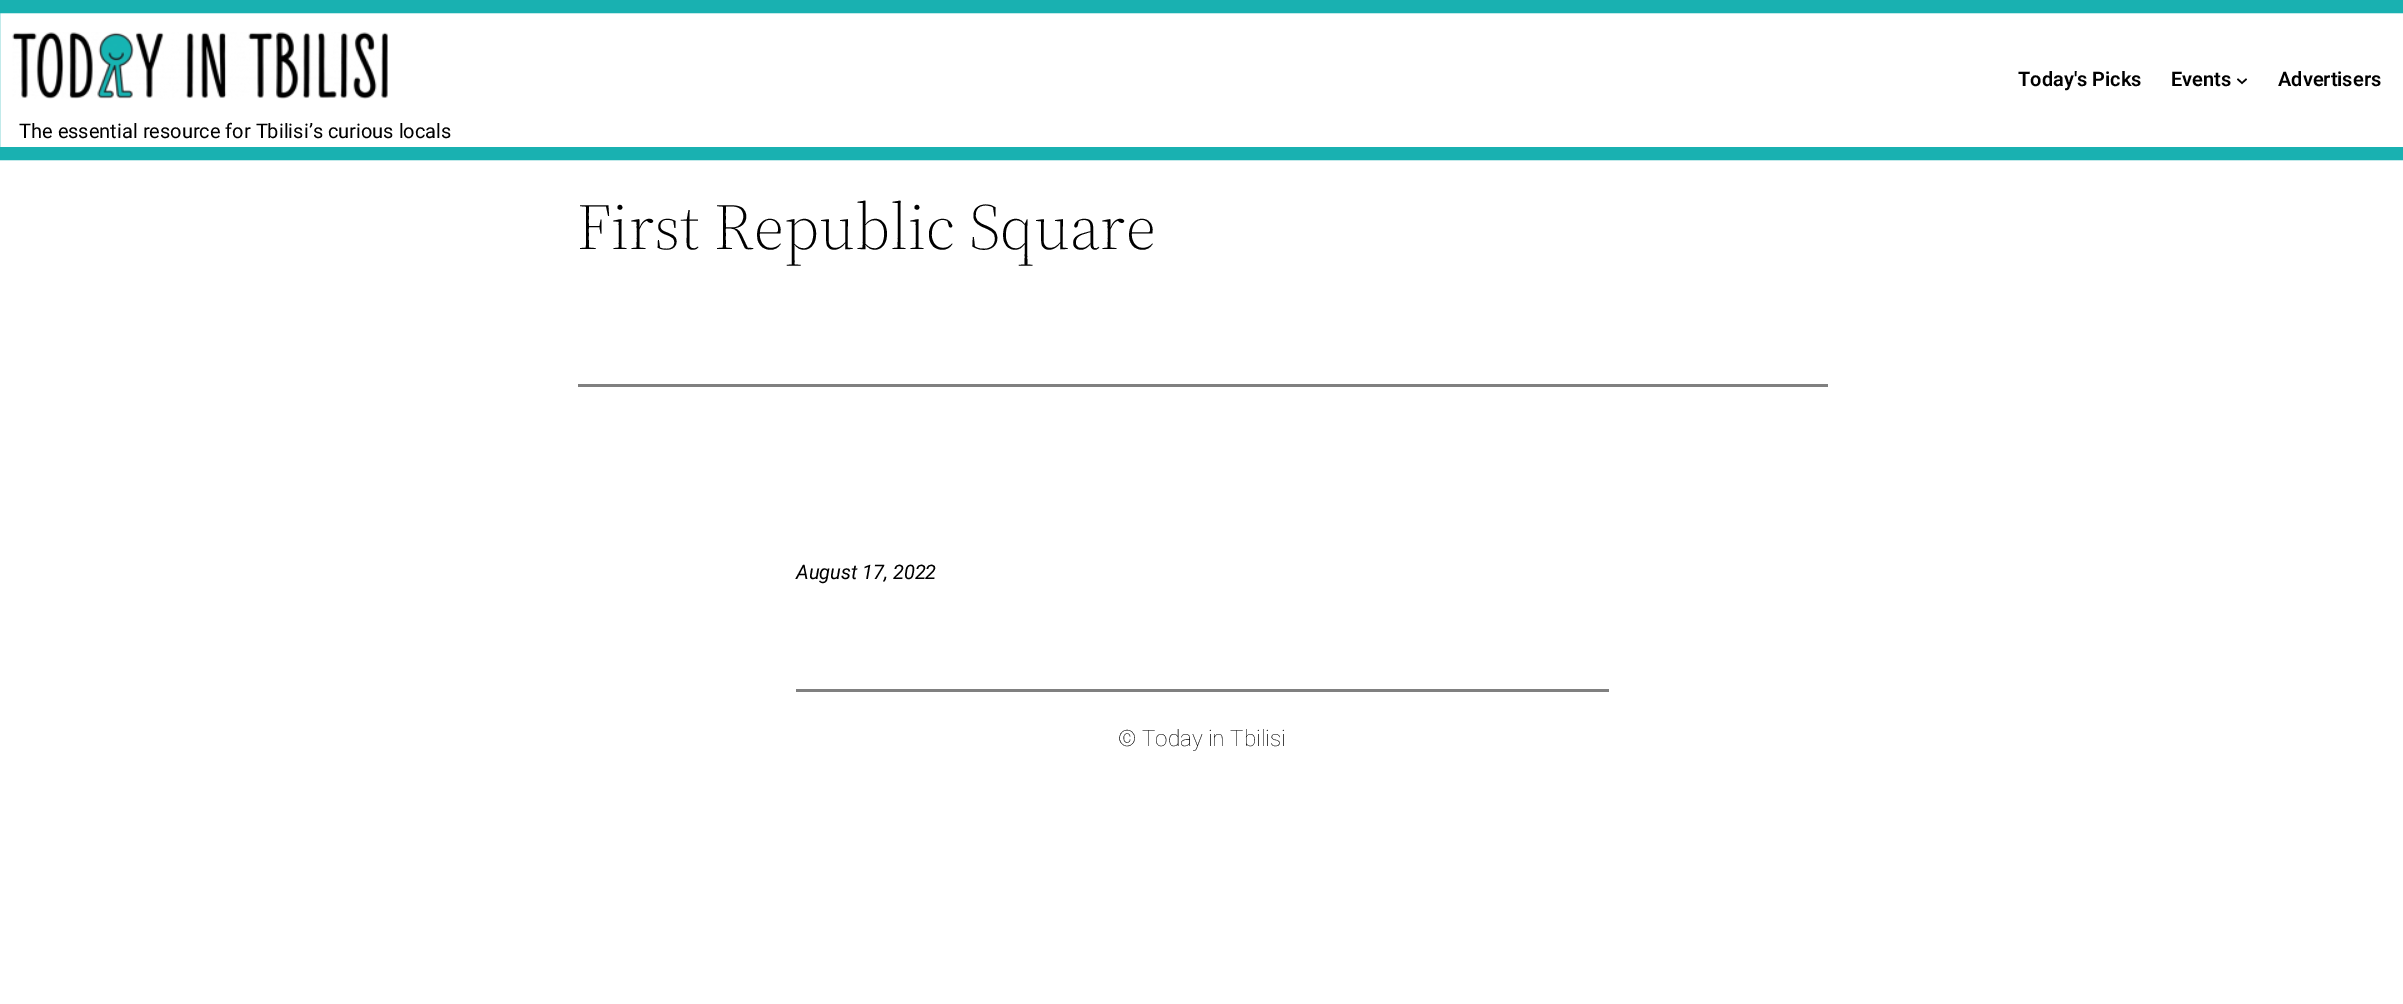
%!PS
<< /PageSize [2403 1004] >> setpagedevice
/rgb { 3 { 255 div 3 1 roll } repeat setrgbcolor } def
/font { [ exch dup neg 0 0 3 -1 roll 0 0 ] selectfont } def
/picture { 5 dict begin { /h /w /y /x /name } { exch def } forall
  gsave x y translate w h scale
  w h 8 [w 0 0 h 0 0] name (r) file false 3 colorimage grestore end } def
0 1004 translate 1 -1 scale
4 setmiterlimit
255 255 255 rgb
0 0 2403 1004 rectfill
25 177 177 rgb
13 setlinewidth
-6.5 6.5 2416 147 rectstroke
0 0 0 rgb
1.5 setlinewidth
2237.5 79 moveto 2242 83 lineto 2246.5 79 lineto stroke
(img/1.rgb) 12 32 376 67 picture
128 128 128 rgb
578 384 1250 3 rectfill
796 689 813 3 rectfill
/Roboto-SemiBold 20 font
0 0 0 rgb
[
  [(Today's Picks) 2018 86]
  [(Events) 2171 86]
  [(Advertisers) 2278 86]
] { aload pop moveto show } forall
/Roboto-Regular 20 font
19 138 moveto (The essential resource for Tbilisi’s curious locals) show
/SourceSerif4-Light 65 font
577 249 moveto (First Republic Square) show
/Roboto-Italic 20 font
796 579 moveto (August 17, 2022) show
/Roboto-Thin 22.5 font
1118 746 moveto (© Today in Tbilisi) show
showpage
